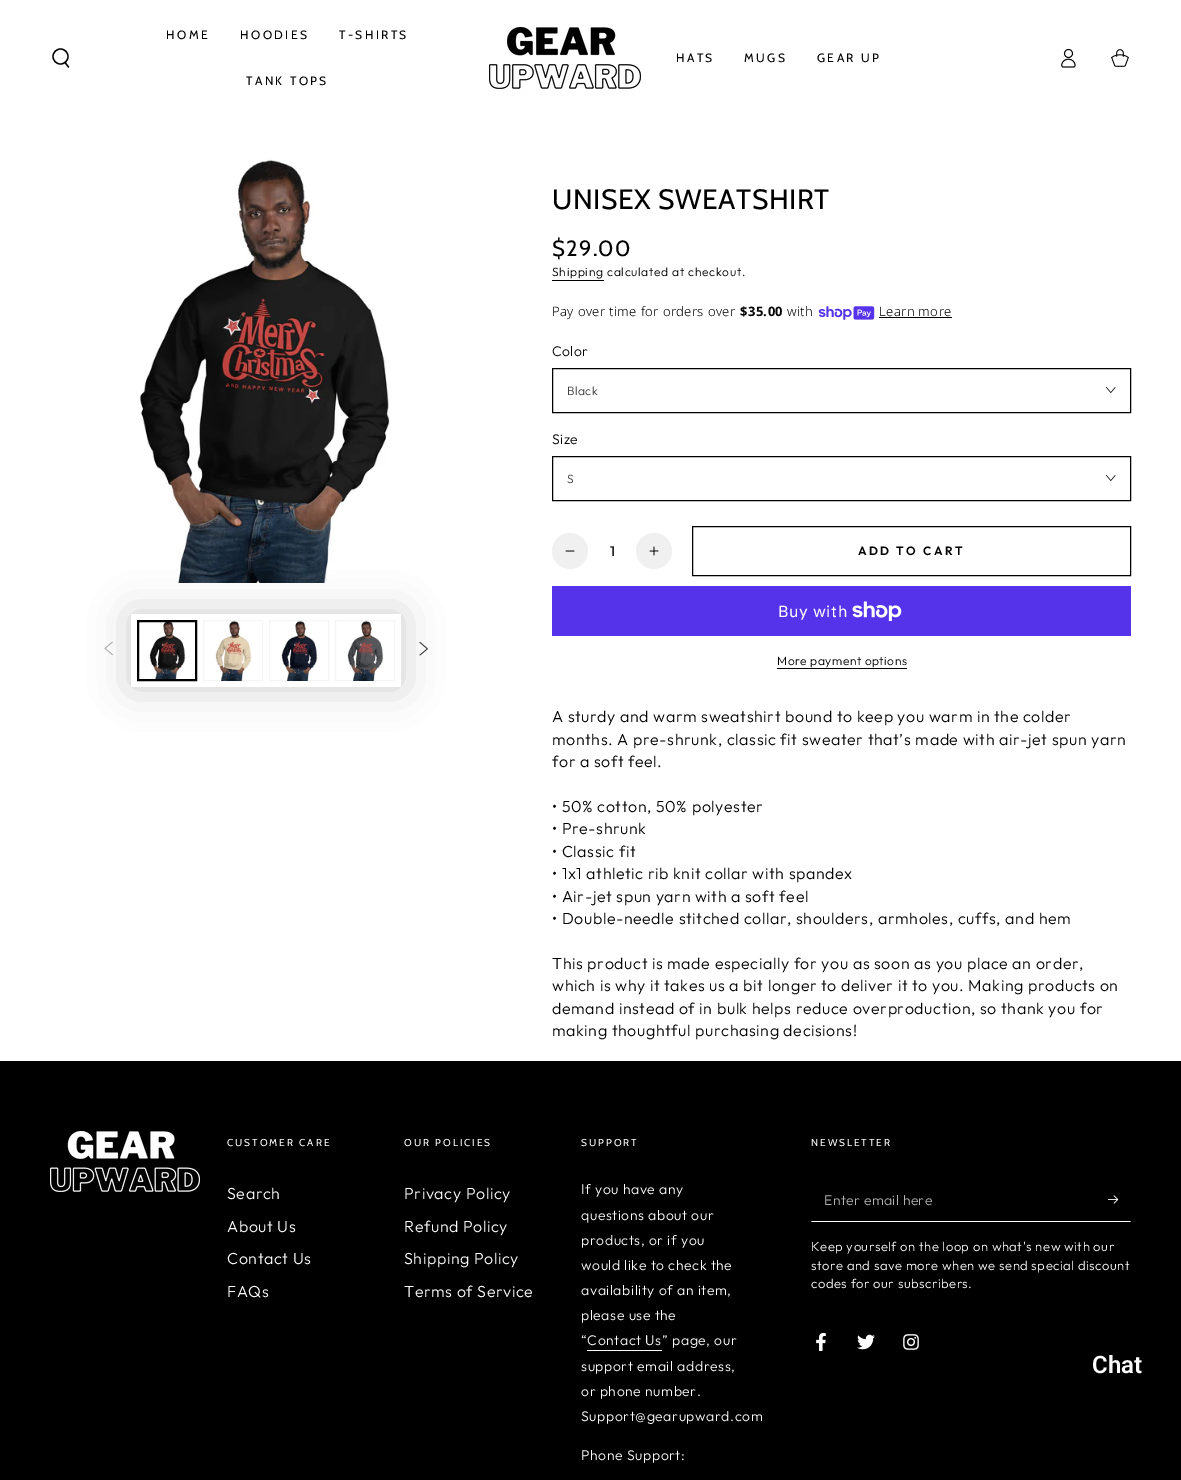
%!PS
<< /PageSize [1181 1480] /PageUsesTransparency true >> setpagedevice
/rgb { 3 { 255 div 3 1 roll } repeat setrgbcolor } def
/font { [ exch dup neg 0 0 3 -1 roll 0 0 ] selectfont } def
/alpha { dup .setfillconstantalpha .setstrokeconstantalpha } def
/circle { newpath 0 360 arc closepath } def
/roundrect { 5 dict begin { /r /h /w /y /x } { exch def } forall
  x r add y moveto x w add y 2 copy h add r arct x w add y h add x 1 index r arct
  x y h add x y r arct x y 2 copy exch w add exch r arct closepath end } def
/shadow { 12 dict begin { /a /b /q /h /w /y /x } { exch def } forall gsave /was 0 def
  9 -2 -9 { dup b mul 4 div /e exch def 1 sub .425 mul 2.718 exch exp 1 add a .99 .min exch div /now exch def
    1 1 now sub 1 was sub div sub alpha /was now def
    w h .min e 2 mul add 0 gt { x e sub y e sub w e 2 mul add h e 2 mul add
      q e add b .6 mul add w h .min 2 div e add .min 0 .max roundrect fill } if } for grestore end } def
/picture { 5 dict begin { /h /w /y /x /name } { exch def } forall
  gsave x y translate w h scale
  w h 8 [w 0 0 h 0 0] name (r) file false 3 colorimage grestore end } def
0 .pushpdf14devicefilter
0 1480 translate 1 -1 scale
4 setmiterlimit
255 255 255 rgb
0 0 1181 1480 rectfill
0 0 0 rgb
1.3 setlinewidth
60.5 56.5 7.5 circle stroke
1 setlinecap
65 62.5 moveto 68.5 67 lineto stroke
(img/1.rgb) 489 27 152 62 picture
(img/2.rgb) 1061 48 15 20 picture
(img/3.rgb) 1111 49 18 18 picture
(img/4.rgb) 139 158 251 425 picture
gsave
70 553 moveto 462 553 lineto 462 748 lineto 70 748 lineto closepath 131 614 moveto 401 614 lineto 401 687 lineto 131 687 lineto closepath eoclip newpath
131 614 270 73 0 20 0.2 shadow
grestore
(img/5.rgb) 149 622 37 57 picture
2 setlinewidth
0 setlinecap
138 621 58 59 rectstroke
(img/6.rgb) 215 620 37 61 picture
0.04 alpha
1 setlinewidth
203.5 620.5 59 60 rectstroke
1 alpha
(img/7.rgb) 281 620 37 61 picture
0.04 alpha
269.5 620.5 59 60 rectstroke
1 alpha
(img/8.rgb) 347 620 37 61 picture
0.04 alpha
335.5 620.5 59 60 rectstroke
1 alpha
(img/9.rgb) 104 641 9 15 picture
(img/10.rgb) 419 641 9 15 picture
552 280 52 1 rectfill
(img/11.rgb) 818 306 57 14 picture
879 317 73 1 rectfill
552.5 368.5 578 44 rectstroke
(img/12.rgb) 1106 387 10 6 picture
552.5 456.5 578 44 rectstroke
(img/12.rgb) 1106 475 10 6 picture
240 240 240 rgb
570 551 18 circle fill
(img/13.rgb) 565 550 10 2 picture
654 551 18 circle fill
(img/14.rgb) 649 546 10 10 picture
0 0 0 rgb
692.5 526.5 438 49 rectstroke
84 51 235 rgb
552 586 579 50 rectfill
(img/15.rgb) 852 601 50 20 picture
0 0 0 rgb
777 668 130 1 rectfill
0 1061 1181 419 rectfill
(img/16.rgb) 50 1131 150 61 picture
255 255 255 rgb
587 1350 75 1 rectfill
1131 1222 moveto 811 1222 lineto 812 1221 lineto 1130 1221 lineto closepath fill
(img/17.rgb) 1108 1195 11 9 picture
(img/18.rgb) 816 1333 10 18 picture
(img/19.rgb) 857 1334 18 16 picture
(img/20.rgb) 903 1334 16 16 picture
/Cabin-Regular 12 font
0 0 0 rgb
166 39 moveto 2.4 0 (HOME) ashow
240 39 moveto 2.4 0 (HOODIES) ashow
339 39 moveto 2.4 0 (T-SHIRTS) ashow
246 85 moveto 2.4 0 (TANK TOPS) ashow
676 62 moveto 2.4 0 (HATS) ashow
744 62 moveto 2.4 0 (MUGS) ashow
817 62 moveto 2.4 0 (GEAR UP) ashow
/Cabin-Regular 28 font
552 209 moveto 0.6 0 (UNISEX SWEATSHIRT) ashow
/Cabin-Regular 22 font
552 256 moveto 1.25 0 ($29.00) ashow
/Outfit-Light 12 font
552 276 moveto 0.7 0 (Shipping) ashow
607 276 moveto 0.7 0 (calculated at checkout.) ashow
/NotoSans-Light 13 font
552 316 moveto 0.4 0 (Pay over time for orders over) ashow
/NotoSans-Bold 13 font
740 316 moveto 0.4 0 ($35.00) ashow
/NotoSans-Light 13 font
787 316 moveto 0.4 0 (with) ashow
879 316 moveto 0.4 0 (Learn more) ashow
/Outfit-Light 14 font
552 356 moveto 0.4 0 (Color) ashow
/Outfit-Light 12 font
64 64 64 rgb
567 395 moveto 0.4 0 (Black) ashow
/Outfit-Light 14 font
0 0 0 rgb
552 444 moveto 0.4 0 (Size) ashow
/Outfit-Light 12 font
64 64 64 rgb
567 483 moveto 0.4 0 (S) ashow
/Outfit-SemiBold 14 font
38 38 38 rgb
610 556 moveto (1) show
/Outfit-SemiBold 12 font
0 0 0 rgb
858 555 moveto 2.4 0 (ADD TO CART) ashow
/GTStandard-Regular 16 font
255 255 255 rgb
778 617 moveto 0.6 0 (Buy with) ashow
/Outfit-Light 12 font
0 0 0 rgb
777 665 moveto 0.5 0 (More payment options) ashow
/Outfit-Light 16 font
552 722 moveto 0.6 0 (A sturdy and warm sweatshirt bound to keep you warm in the colder) ashow
552 745 moveto 0.6 0 (months. A pre-shrunk, classic fit sweater that’s made with air-jet spun yarn) ashow
552 767 moveto 0.6 0 (for a soft feel.) ashow
552 812 moveto 0.6 0 (• 50% cotton, 50% polyester) ashow
552 834 moveto 0.6 0 (• Pre-shrunk) ashow
552 857 moveto 0.6 0 (• Classic fit) ashow
552 879 moveto 0.6 0 (• 1x1 athletic rib knit collar with spandex) ashow
552 902 moveto 0.6 0 (• Air-jet spun yarn with a soft feel) ashow
552 924 moveto 0.6 0 (• Double-needle stitched collar, shoulders, armholes, cuffs, and hem) ashow
552 969 moveto 0.6 0 (This product is made especially for you as soon as you place an order,) ashow
552 991 moveto 0.6 0 (which is why it takes us a bit longer to deliver it to you. Making products on) ashow
552 1014 moveto 0.6 0 (demand instead of in bulk helps reduce overproduction, so thank you for) ashow
552 1036 moveto 0.6 0 (making thoughtful purchasing decisions!) ashow
/Cabin-Regular 10 font
255 255 255 rgb
227 1146 moveto 2 0 (CUSTOMER CARE) ashow
/Outfit-Light 16 font
227 1199 moveto 0.6 0 (Search) ashow
227 1232 moveto 0.6 0 (About Us) ashow
227 1264 moveto 0.6 0 (Contact Us) ashow
227 1297 moveto 0.6 0 (FAQs) ashow
/Cabin-Regular 10 font
404 1146 moveto 2 0 (OUR POLICIES) ashow
/Outfit-Light 16 font
404 1199 moveto 0.6 0 (Privacy Policy) ashow
404 1232 moveto 0.6 0 (Refund Policy) ashow
404 1264 moveto 0.6 0 (Shipping Policy) ashow
404 1297 moveto 0.6 0 (Terms of Service) ashow
/Cabin-Regular 10 font
581 1146 moveto 2 0 (SUPPORT) ashow
/Outfit-Light 14 font
581 1194 moveto 0.6 0 (If you have any) ashow
581 1220 moveto 0.6 0 (questions about our) ashow
581 1245 moveto 0.6 0 (products, or if you) ashow
581 1270 moveto 0.6 0 (would like to check the) ashow
581 1295 moveto 0.6 0 (availability of an item,) ashow
581 1320 moveto 0.6 0 (please use the) ashow
581 1345 moveto 0.6 0 (“Contact Us) ashow
662 1345 moveto 0.6 0 (” page, our) ashow
581 1371 moveto 0.6 0 (support email address,) ashow
581 1396 moveto 0.6 0 (or phone number.) ashow
581 1421 moveto 0.6 0 (Support@gearupward.com) ashow
581 1460 moveto 0.6 0 (Phone Support:) ashow
/Cabin-Regular 10 font
811 1146 moveto 2 0 (NEWSLETTER) ashow
/Outfit-Light 14 font
179 179 179 rgb
824 1205 moveto 0.4 0 (Enter email here) ashow
/Outfit-Light 13 font
255 255 255 rgb
811 1251 moveto 0.5 0 (Keep yourself on the loop on what's new with our) ashow
811 1270 moveto 0.5 0 (store and save more when we send special discount) ashow
811 1288 moveto 0.5 0 (codes for our subscribers.) ashow
/Roboto-SemiBold 24 font
1092 1373 moveto (Chat) show
.poppdf14devicefilter showpage
